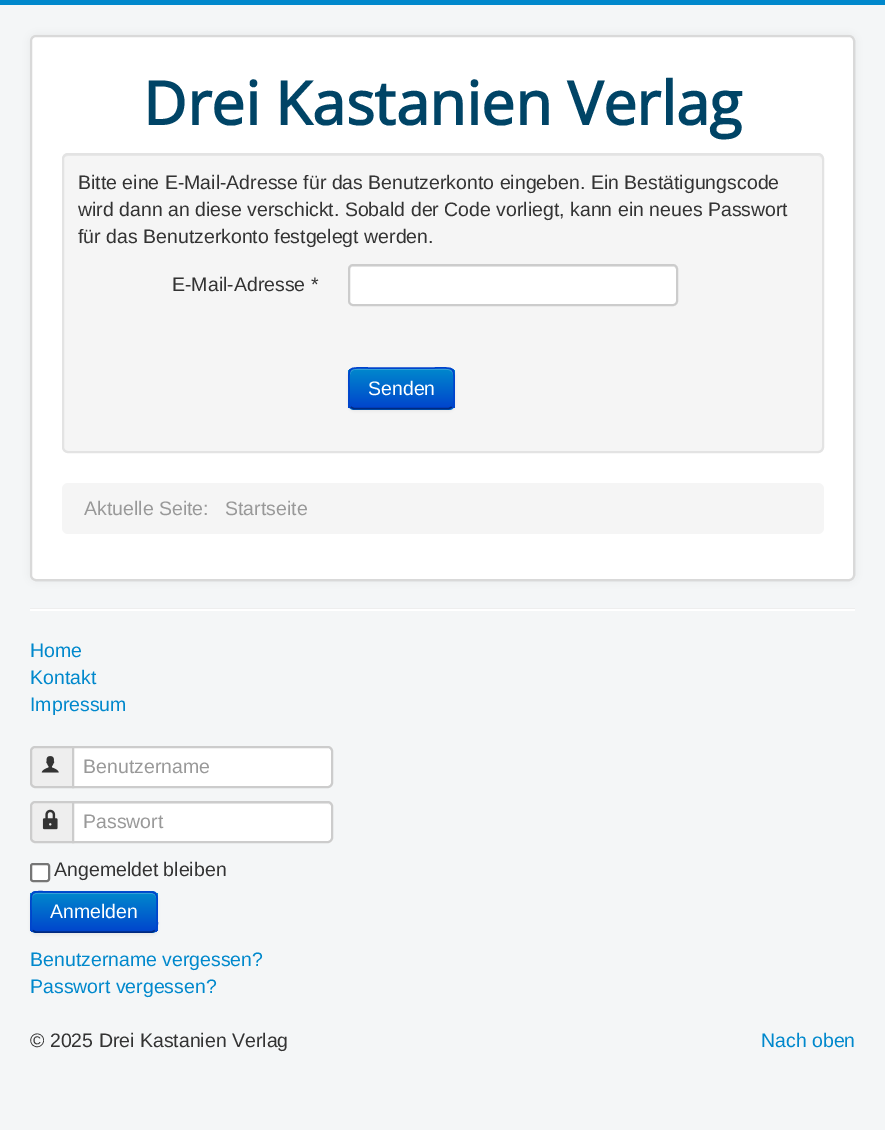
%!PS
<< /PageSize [885 1130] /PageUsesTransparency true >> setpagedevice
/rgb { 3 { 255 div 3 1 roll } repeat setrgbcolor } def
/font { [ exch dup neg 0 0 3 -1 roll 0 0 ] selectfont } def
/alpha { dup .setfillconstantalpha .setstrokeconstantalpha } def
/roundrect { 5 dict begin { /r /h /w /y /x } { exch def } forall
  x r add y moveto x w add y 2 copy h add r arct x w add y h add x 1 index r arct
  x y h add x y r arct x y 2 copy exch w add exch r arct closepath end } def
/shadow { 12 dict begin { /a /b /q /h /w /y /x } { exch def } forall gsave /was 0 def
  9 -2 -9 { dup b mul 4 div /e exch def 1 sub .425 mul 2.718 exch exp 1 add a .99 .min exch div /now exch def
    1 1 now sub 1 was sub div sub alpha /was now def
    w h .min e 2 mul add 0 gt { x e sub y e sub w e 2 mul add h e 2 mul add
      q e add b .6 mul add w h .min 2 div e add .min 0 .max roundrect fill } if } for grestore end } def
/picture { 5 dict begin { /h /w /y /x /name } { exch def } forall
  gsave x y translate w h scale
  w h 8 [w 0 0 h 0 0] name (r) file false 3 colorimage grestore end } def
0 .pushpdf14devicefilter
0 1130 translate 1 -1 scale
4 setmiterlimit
244 246 247 rgb
0 0 885 1130 rectfill
0 136 204 rgb
0 0 885 5 rectfill
0 0 0 rgb
30 35 825 546 6 4.5 0.05 shadow
255 255 255 rgb
30 35 825 546 6 roundrect fill
0.15 alpha
0 0 0 rgb
2 setlinewidth
31 36 823 544 5 roundrect stroke
1 alpha
245 245 245 rgb
62 153 762 300 6 roundrect fill
233 233 233 rgb
68 156 moveto 818 156 lineto 820 156 822 158 822 160 curveto 822 157 820 155 817 155 curveto 68 155 lineto 65 155 63 157 63 160 curveto 63 158 65 156 68 156 curveto closepath fill
227 227 227 rgb
63 154 760 298 5 roundrect stroke
255 255 255 rgb
348 264 330 42 5 roundrect fill
236 236 236 rgb
352 267 moveto 674 267 lineto 678 267 676 280 676 281 curveto 676 304 lineto 677 304 677 303 677 302 curveto 677 269 lineto 677 267 676 266 674 266 curveto 353 266 lineto 351 266 350 267 350 269 curveto 350 270 lineto 350 268 351 267 352 267 curveto closepath fill
204 204 204 rgb
349 265 328 40 4 roundrect stroke
0 0 0 rgb
348 369 107 42 6 1.5 0.05 shadow
0 109 204 rgb
348 368 107 42 6 roundrect fill
gsave
348 368 107 42 6 roundrect clip newpath
gsave 348 369 moveto 455 369 lineto 455 408 lineto 348 408 lineto closepath clip newpath
<< /ShadingType 2 /ColorSpace /DeviceRGB /Coords [401 369 401 408] /Extend [true true] /Function << /FunctionType 2 /Domain [0 1] /C0 [0 0.533 0.8] /C1 [0 0.267 0.8] /N 1 >> >> shfill grestore
grestore
0.2 alpha
255 255 255 rgb
354 370 moveto 448 370 lineto 451 370 453 373 453 375 curveto 453 365 438 369 432 369 curveto 370 369 lineto 365 369 350 365 350 375 curveto 350 373 352 370 354 370 curveto closepath fill
1 alpha
0 42 128 rgb
1.5 setlinewidth
452 407 moveto 449 408.5 lineto 353.5 408.5 lineto 350.5 407 lineto stroke
0 68 204 rgb
350.5 407 moveto 348 405 349 401.5 349 398.5 curveto 349 388.5 lineto 349 365.5 346 368 370 368 curveto 433 368 lineto 456.5 368 454 365.5 454 388.5 curveto 454 398.5 lineto 454 401.5 454.5 405 452 407 curveto stroke
245 245 245 rgb
62 483 762 51 6 roundrect fill
238 238 238 rgb
30 608 825 1 rectfill
255 255 255 rgb
30 609 825 2 rectfill
238 238 238 rgb
35 747 moveto 73 747 lineto 73 787 lineto 35 787 lineto 33 787 31 785 31 783 curveto 31 751 lineto 31 749 33 747 35 747 curveto closepath gsave fill grestore
204 204 204 rgb
2 setlinewidth
stroke
(img/1.rgb) 41 756 18 17 picture
255 255 255 rgb
73 747 moveto 328 747 lineto 330 747 332 749 332 751 curveto 332 783 lineto 332 785 330 787 328 787 curveto 73 787 lineto closepath gsave fill grestore
204 204 204 rgb
stroke
238 238 238 rgb
35 802 moveto 73 802 lineto 73 842 lineto 35 842 lineto 33 842 31 840 31 838 curveto 31 806 lineto 31 804 33 802 35 802 curveto closepath gsave fill grestore
204 204 204 rgb
stroke
(img/2.rgb) 42 809 16 21 picture
255 255 255 rgb
72 801 moveto 328 801 lineto 331 801 333 803 333 806 curveto 333 838 lineto 333 841 331 843 328 843 curveto 72 843 lineto closepath fill
236 236 236 rgb
74 804 moveto 328 804 lineto 330 804 332 805 332 807 curveto 332 806 lineto 332 804 331 803 329 803 curveto 74 803 lineto closepath fill
204 204 204 rgb
73 802 moveto 328 802 lineto 330 802 332 804 332 806 curveto 332 838 lineto 332 840 330 842 328 842 curveto 73 842 lineto closepath stroke
255 255 255 rgb
31 864 18 17 2 roundrect gsave fill grestore
118 118 118 rgb
stroke
0 0 0 rgb
30 893 128 42 6 1.5 0.05 shadow
0 109 204 rgb
30 891 128 42 6 roundrect fill
gsave
30 891 128 42 6 roundrect clip newpath
gsave 30 893 moveto 158 893 lineto 158 932 lineto 30 932 lineto closepath clip newpath
<< /ShadingType 2 /ColorSpace /DeviceRGB /Coords [94 893 94 932] /Extend [true true] /Function << /FunctionType 2 /Domain [0 1] /C0 [0 0.533 0.8] /C1 [0 0.267 0.8] /N 1 >> >> shfill grestore
grestore
51 159 214 rgb
36 894 moveto 152 894 lineto 154 894 156 896 156 898 curveto 156 895 154 893 151 893 curveto 37 893 lineto 34 893 32 895 32 898 curveto 32 896 34 894 36 894 curveto closepath fill
0 42 128 rgb
1.5 setlinewidth
155 930.5 moveto 152 932 lineto 35.5 932 lineto 32.5 930.5 lineto stroke
0 68 204 rgb
32.5 930.5 moveto 30 928.5 31 925 31 922 curveto 31 912 lineto 31 887.5 28.5 892 55 892 curveto 132 892 lineto 161.5 892 157 888 157 917 curveto 157 920.5 158.5 927.5 155 930.5 curveto stroke
/OpenSans-Bold 60 font
0 68 102 rgb
143 125 moveto (Drei Kastanien Verlag) show
/LiberationSans-Regular 19.5 font
51 51 51 rgb
[
  [(Bitte eine E-Mail-Adresse für das Benutzerkonto eingeben. Ein Bestätigungscode) 78 189]
  [(wird dann an diese verschickt. Sobald der Code vorliegt, kann ein neues Passwort) 78 216]
  [(für das Benutzerkonto festgelegt werden.) 78 243]
  [(E-Mail-Adresse *) 172 291]
] { aload pop moveto show } forall
255 255 255 rgb
368 395 moveto (Senden) show
153 153 153 rgb
84 515 moveto (Aktuelle Seite:) show
225 515 moveto (Startseite) show
0 136 204 rgb
[
  [(Home) 30 657]
  [(Kontakt) 30 684]
  [(Impressum) 30 711]
] { aload pop moveto show } forall
153 153 153 rgb
83 773 moveto (Benutzername) show
83 828 moveto (Passwort) show
51 51 51 rgb
54 876 moveto (Angemeldet bleiben) show
255 255 255 rgb
50 918 moveto (Anmelden) show
0 136 204 rgb
30 966 moveto (Benutzername vergessen?) show
30 993 moveto (Passwort vergessen?) show
51 51 51 rgb
30 1047 moveto (© 2025 Drei Kastanien Verlag) show
0 136 204 rgb
761 1047 moveto (Nach oben) show
.poppdf14devicefilter showpage
